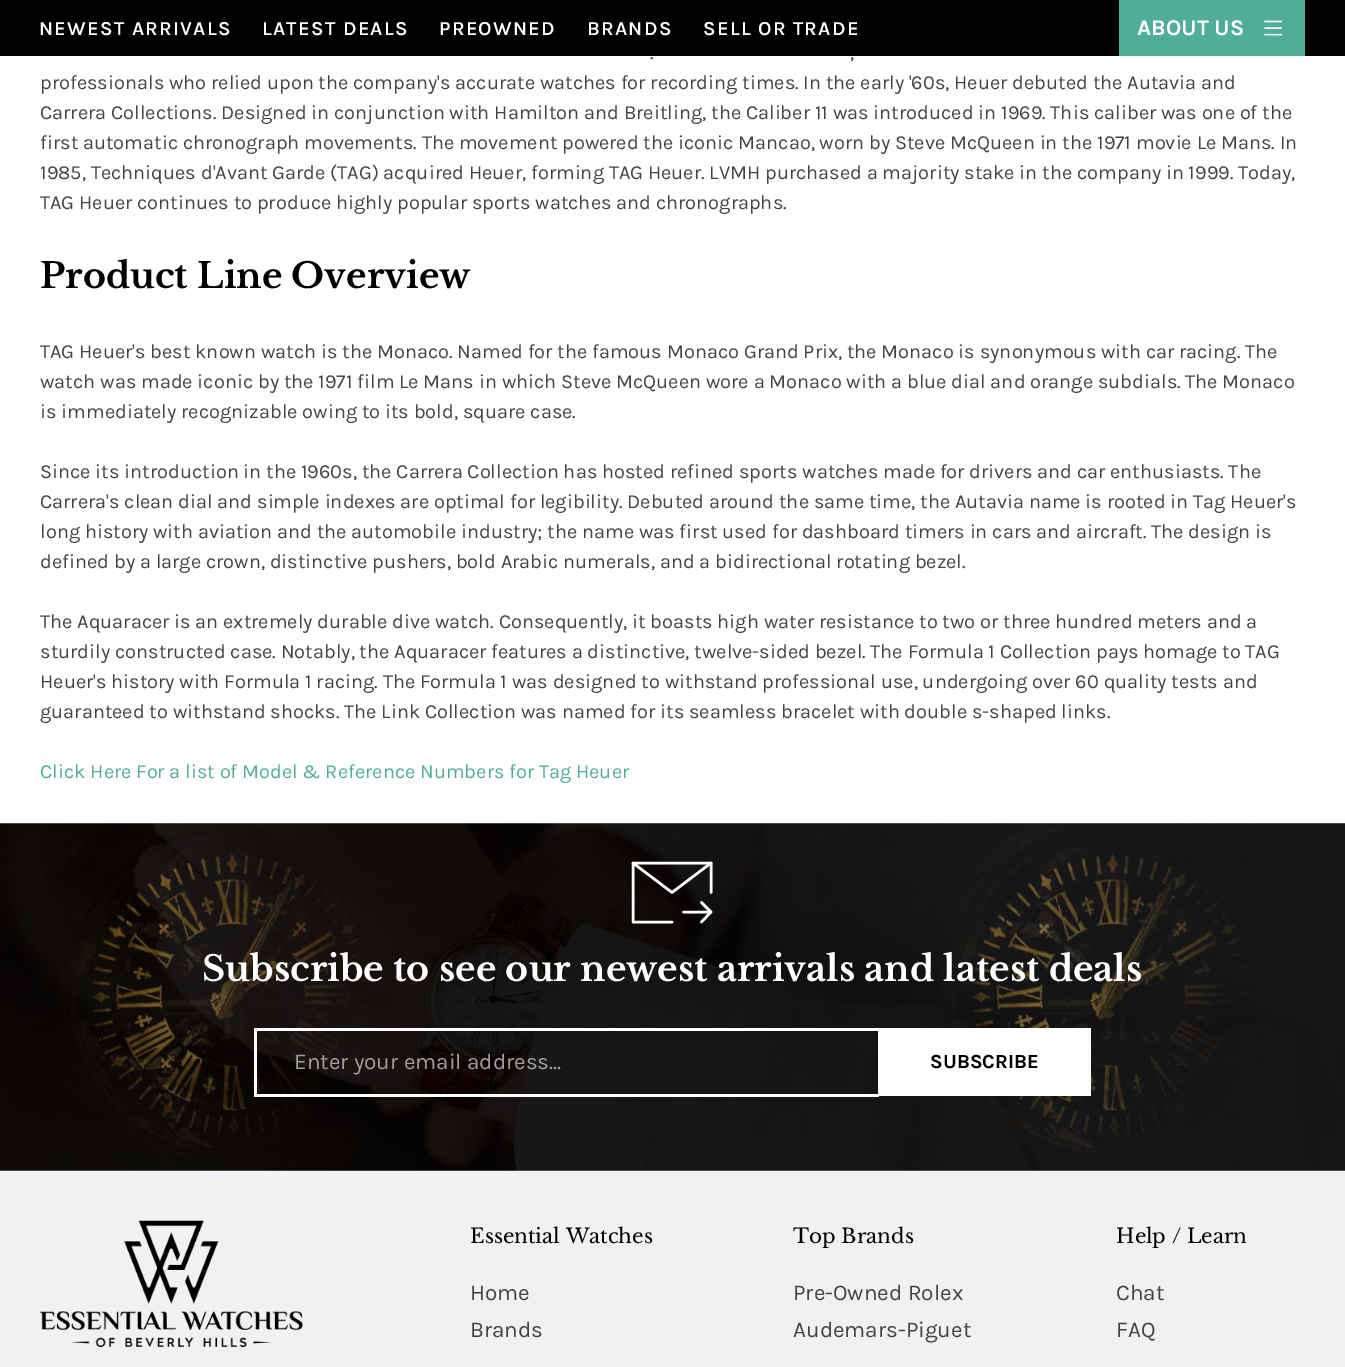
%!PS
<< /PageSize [1345 1367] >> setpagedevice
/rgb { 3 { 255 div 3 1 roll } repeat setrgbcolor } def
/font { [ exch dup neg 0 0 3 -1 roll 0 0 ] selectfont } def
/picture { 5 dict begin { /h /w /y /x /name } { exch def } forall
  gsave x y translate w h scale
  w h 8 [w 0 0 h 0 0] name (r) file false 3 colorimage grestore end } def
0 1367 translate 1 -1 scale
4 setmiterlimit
255 255 255 rgb
0 0 1345 1367 rectfill
0 0 0 rgb
0 0 1345 56 rectfill
81 173 152 rgb
1119 0 186 56 rectfill
(img/1.rgb) 1264 20 19 16 picture
(img/2.rgb) 0 823 1345 348 picture
255 255 255 rgb
2.5 setlinewidth
1 setlinecap
1 setlinejoin
711 892.5 moveto 711 863 lineto 633 863 lineto 633 922 lineto 672 922 lineto 711 912 moveto 683.5 912 lineto 701.5 902.5 moveto 711 912 lineto 701.5 922 lineto stroke
633 863 moveto 672 892.5 lineto 711 863 lineto stroke
[
  [878 1028 213 68 255 255 255]
  [254 1028 625 3 255 255 255]
  [254 1094 625 3 255 255 255]
  [254 1028 3 68 255 255 255]
  [0 1171 1345 196 240 241 243]
] { aload pop rgb rectfill } forall
(img/3.rgb) 40 1220 263 127 picture
/Karla-SemiBold 20 font
255 255 255 rgb
39 35 moveto 1.25 0 (NEWEST ARRIVALS) ashow
262 35 moveto 1.25 0 (LATEST DEALS) ashow
439 35 moveto 1.25 0 (PREOWNED) ashow
587 35 moveto 1.25 0 (BRANDS) ashow
703 35 moveto 1.25 0 (SELL OR TRADE) ashow
/Karla-Bold 22.5 font
1137 35 moveto (ABOUT US) show
/Karla-Regular 20 font
68 68 68 rgb
[
  [(.) 650 59]
  [(,) 850 59]
  [(professionals who relied upon the company's accurate watches for recording times. In the early '60s, Heuer debuted the Autavia and) 40 89]
  [(Carrera Collections. Designed in conjunction with Hamilton and Breitling, the Caliber 11 was introduced in 1969. This caliber was one of the) 40 119]
  [(first automatic chronograph movements. The movement powered the iconic Mancao, worn by Steve McQueen in the 1971 movie Le Mans. In) 40 149]
  [(1985, Techniques d'Avant Garde \(TAG\) acquired Heuer, forming TAG Heuer. LVMH purchased a majority stake in the company in 1999. Today,) 40 179]
  [(TAG Heuer continues to produce highly popular sports watches and chronographs.) 40 209]
] { aload pop moveto show } forall
/LibreBaskerville-Bold 35 font
0 0 0 rgb
40 288 moveto (Product Line Overview) show
/Karla-Regular 20 font
68 68 68 rgb
[
  [(TAG Heuer's best known watch is the Monaco. Named for the famous Monaco Grand Prix, the Monaco is synonymous with car racing. The) 40 358]
  [(watch was made iconic by the 1971 film Le Mans in which Steve McQueen wore a Monaco with a blue dial and orange subdials. The Monaco) 40 388]
  [(is immediately recognizable owing to its bold, square case.) 40 418]
  [(Since its introduction in the 1960s, the Carrera Collection has hosted refined sports watches made for drivers and car enthusiasts. The) 40 478]
  [(Carrera's clean dial and simple indexes are optimal for legibility. Debuted around the same time, the Autavia name is rooted in Tag Heuer's) 40 508]
  [(long history with aviation and the automobile industry; the name was first used for dashboard timers in cars and aircraft. The design is) 40 538]
  [(defined by a large crown, distinctive pushers, bold Arabic numerals, and a bidirectional rotating bezel.) 40 568]
  [(The Aquaracer is an extremely durable dive watch. Consequently, it boasts high water resistance to two or three hundred meters and a) 40 628]
  [(sturdily constructed case. Notably, the Aquaracer features a distinctive, twelve-sided bezel. The Formula 1 Collection pays homage to TAG) 40 658]
  [(Heuer's history with Formula 1 racing. The Formula 1 was designed to withstand professional use, undergoing over 60 quality tests and) 40 688]
  [(guaranteed to withstand shocks. The Link Collection was named for its seamless bracelet with double s-shaped links.) 40 718]
] { aload pop moveto show } forall
81 173 152 rgb
40 778 moveto (Click Here For a list of Model & Reference Numbers for Tag Heuer) show
/LibreBaskerville-Bold 35 font
255 255 255 rgb
202 981 moveto (Subscribe to see our newest arrivals and latest deals) show
/Karla-Regular 22.5 font
161 159 158 rgb
294 1069 moveto (Enter your email address...) show
/Karla-Bold 20 font
0 0 0 rgb
930 1068 moveto (SUBSCRIBE) show
/LibreBaskerville-Regular 20 font
470 1243 moveto (Essential Watches) show
/Karla-Regular 22.5 font
68 68 68 rgb
470 1300 moveto (Home) show
470 1337 moveto (Brands) show
/LibreBaskerville-Regular 20 font
0 0 0 rgb
793 1243 moveto (Top Brands) show
/Karla-Regular 22.5 font
68 68 68 rgb
793 1300 moveto (Pre-Owned Rolex) show
793 1337 moveto (Audemars-Piguet) show
/LibreBaskerville-Regular 20 font
0 0 0 rgb
1116 1243 moveto (Help / Learn) show
/Karla-Regular 22.5 font
68 68 68 rgb
1116 1300 moveto (Chat) show
1116 1337 moveto (FAQ) show
showpage
